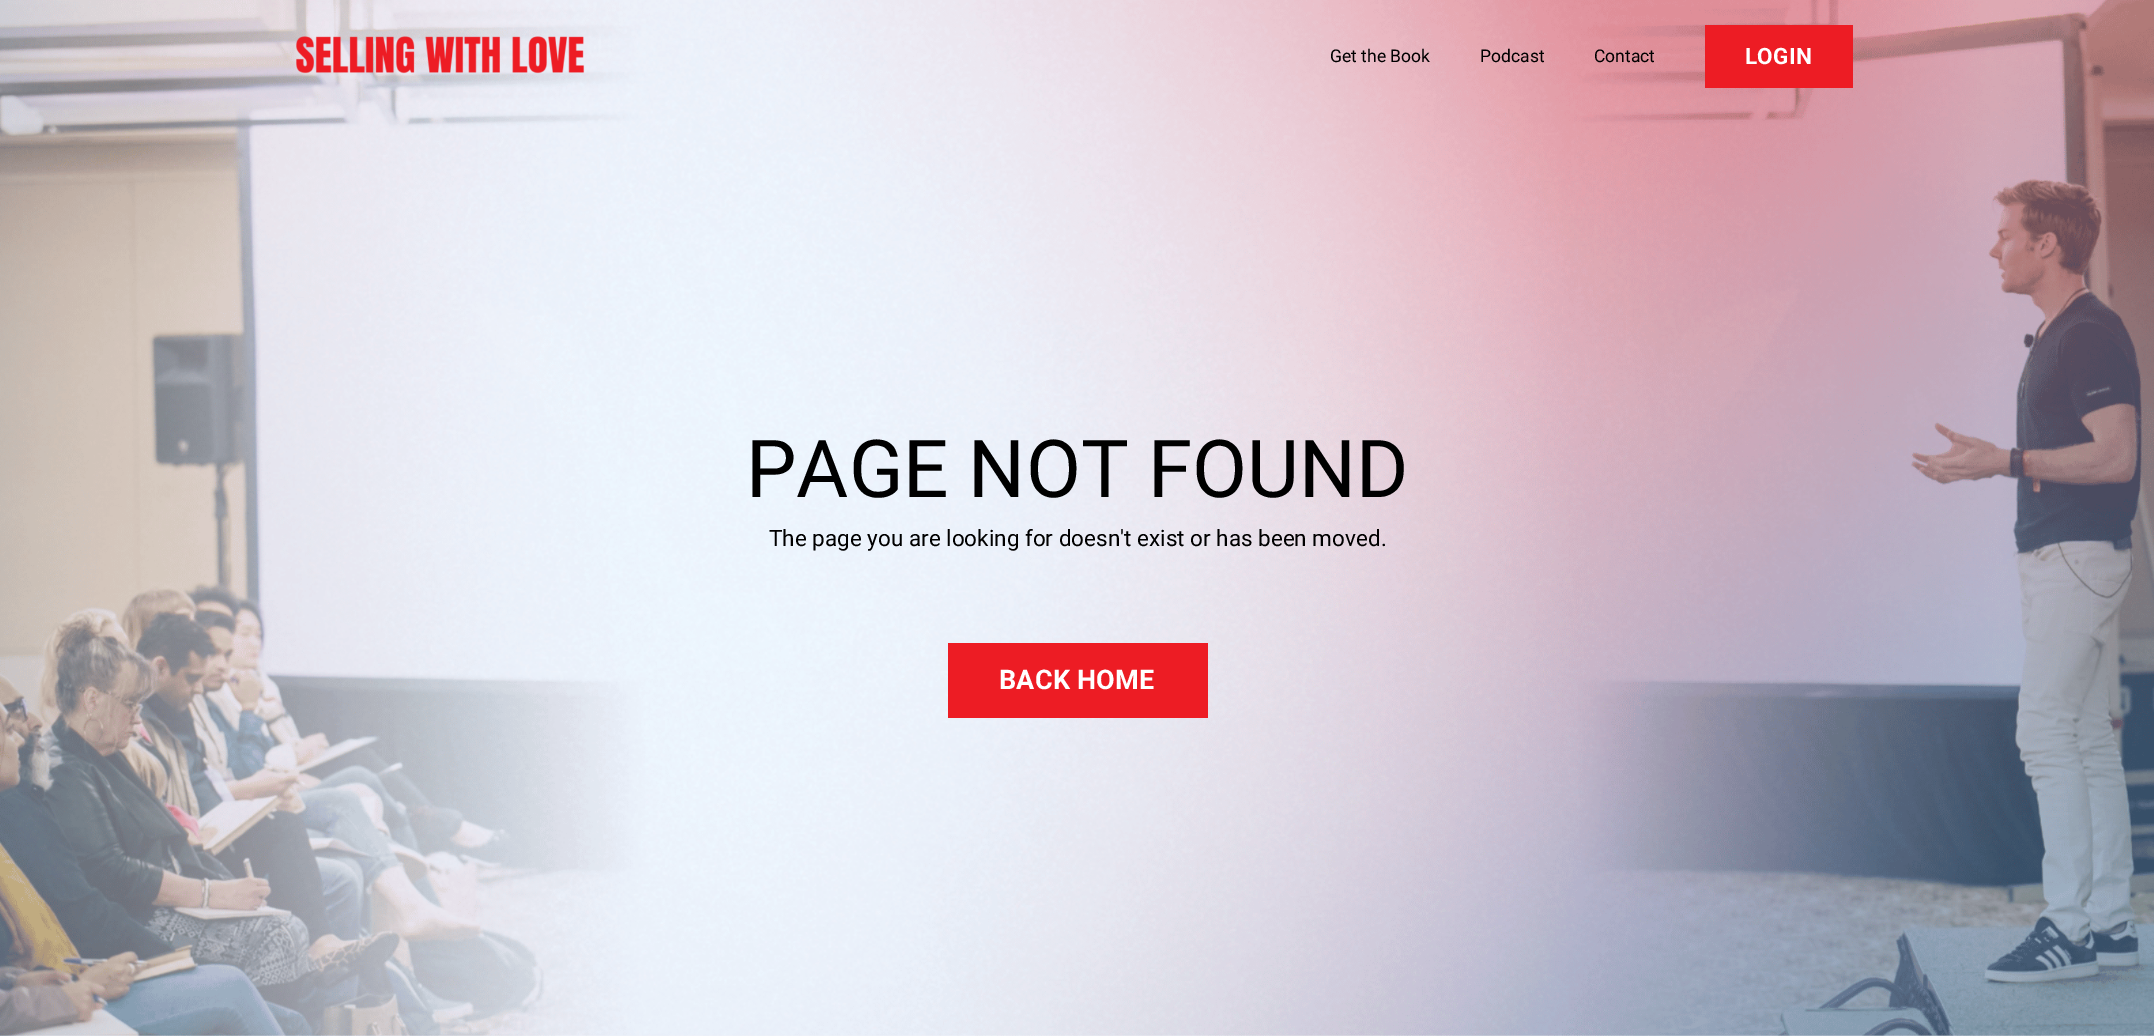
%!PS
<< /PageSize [2154 1036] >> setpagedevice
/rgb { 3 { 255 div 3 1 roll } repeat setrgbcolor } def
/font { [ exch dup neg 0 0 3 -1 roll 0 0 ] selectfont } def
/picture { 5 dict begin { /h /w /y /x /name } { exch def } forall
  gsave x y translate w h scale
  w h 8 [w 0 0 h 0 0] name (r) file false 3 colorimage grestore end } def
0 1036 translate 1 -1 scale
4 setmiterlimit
255 255 255 rgb
0 0 2154 1036 rectfill
(img/2.rgb) 0 0 2154 1036 picture
(img/1.rgb) 296 36 289 38 picture
237 28 36 rgb
1705 25 148 63 rectfill
948 643 260 75 rectfill
/Roboto-Regular 17.5 font
0 0 0 rgb
[
  [(Get the Book) 1330 62]
  [(Podcast) 1480 62]
  [(Contact) 1594 62]
] { aload pop moveto show } forall
/Roboto-Bold 22.5 font
255 255 255 rgb
1745 64 moveto 0.25 0 (LOGIN) ashow
/Roboto-Regular 80 font
0 0 0 rgb
746 497 moveto (PAGE NOT FOUND) show
/Roboto-Regular 22.5 font
769 546 moveto (The page you are looking for doesn't exist or has been moved.) show
/Roboto-Bold 27 font
255 255 255 rgb
999 689 moveto 0.25 0 (BACK HOME) ashow
showpage
